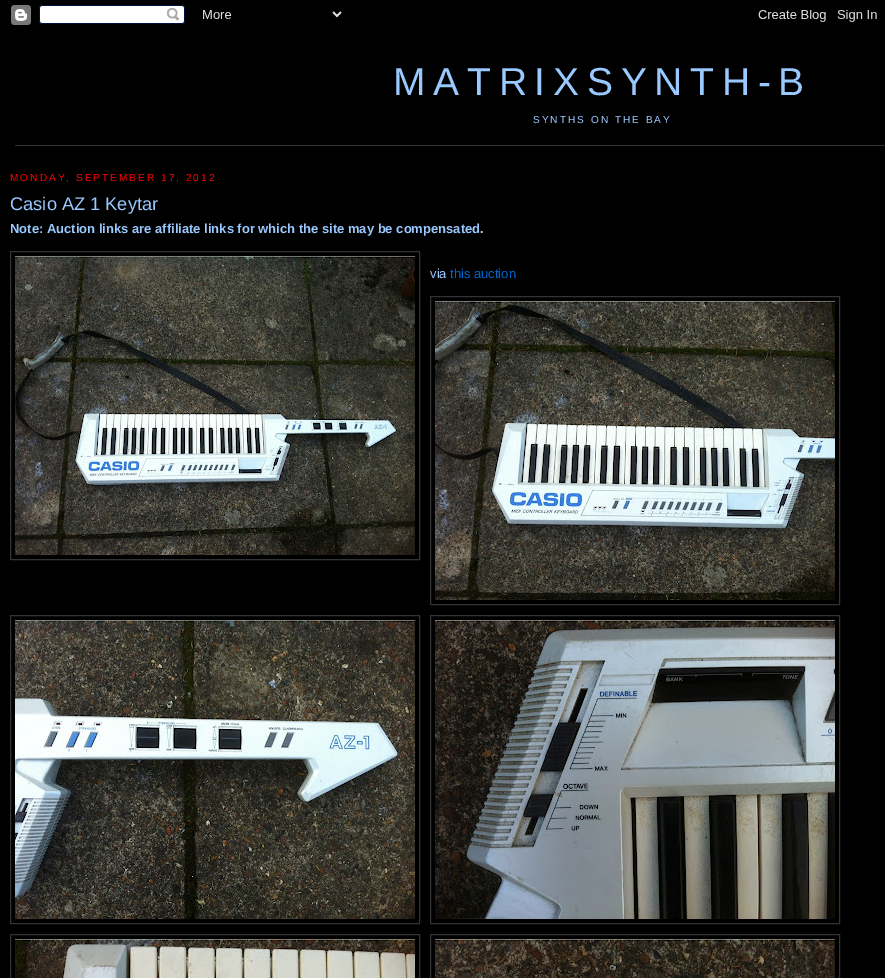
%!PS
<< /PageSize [885 978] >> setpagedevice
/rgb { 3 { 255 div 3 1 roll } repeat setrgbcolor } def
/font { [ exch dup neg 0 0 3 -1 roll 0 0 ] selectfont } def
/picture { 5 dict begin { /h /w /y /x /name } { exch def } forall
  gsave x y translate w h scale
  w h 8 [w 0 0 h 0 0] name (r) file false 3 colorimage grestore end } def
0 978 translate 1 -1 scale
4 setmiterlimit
0 0 0 rgb
0 0 885 978 rectfill
(img/1.rgb) 11 5 866 20 picture
51 51 51 rgb
15 145 870 1 rectfill
10.5 251.5 409 308 rectstroke
(img/2.rgb) 15 256 400 299 picture
430.5 296.5 409 308 rectstroke
(img/3.rgb) 435 301 400 299 picture
10.5 615.5 409 308 rectstroke
(img/4.rgb) 15 620 400 299 picture
430.5 615.5 409 308 rectstroke
(img/5.rgb) 435 620 400 299 picture
10.5 934.5 409 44 rectstroke
(img/6.rgb) 15 939 400 39 picture
430.5 934.5 409 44 rectstroke
(img/7.rgb) 435 939 400 39 picture
/LiberationSans-Regular 39 font
153 201 255 rgb
393 95 moveto 7.75 0 (MATRIXSYNTH-B) ashow
/LiberationSans-Regular 10.1 font
533 123 moveto 2 0 (SYNTHS ON THE BAY) ashow
255 0 0 rgb
10 181 moveto 2 0 (MONDAY, SEPTEMBER 17, 2012) ashow
/LiberationSans-Regular 18.25 font
153 201 255 rgb
10 210 moveto (Casio AZ 1 Keytar) show
/LiberationSans-Bold 13 font
10 233 moveto (Note: Auction links are affiliate links for which the site may be compensated.) show
/LiberationSans-Regular 13 font
430 278 moveto (via) show
0 102 204 rgb
450 278 moveto (this auction) show
showpage
